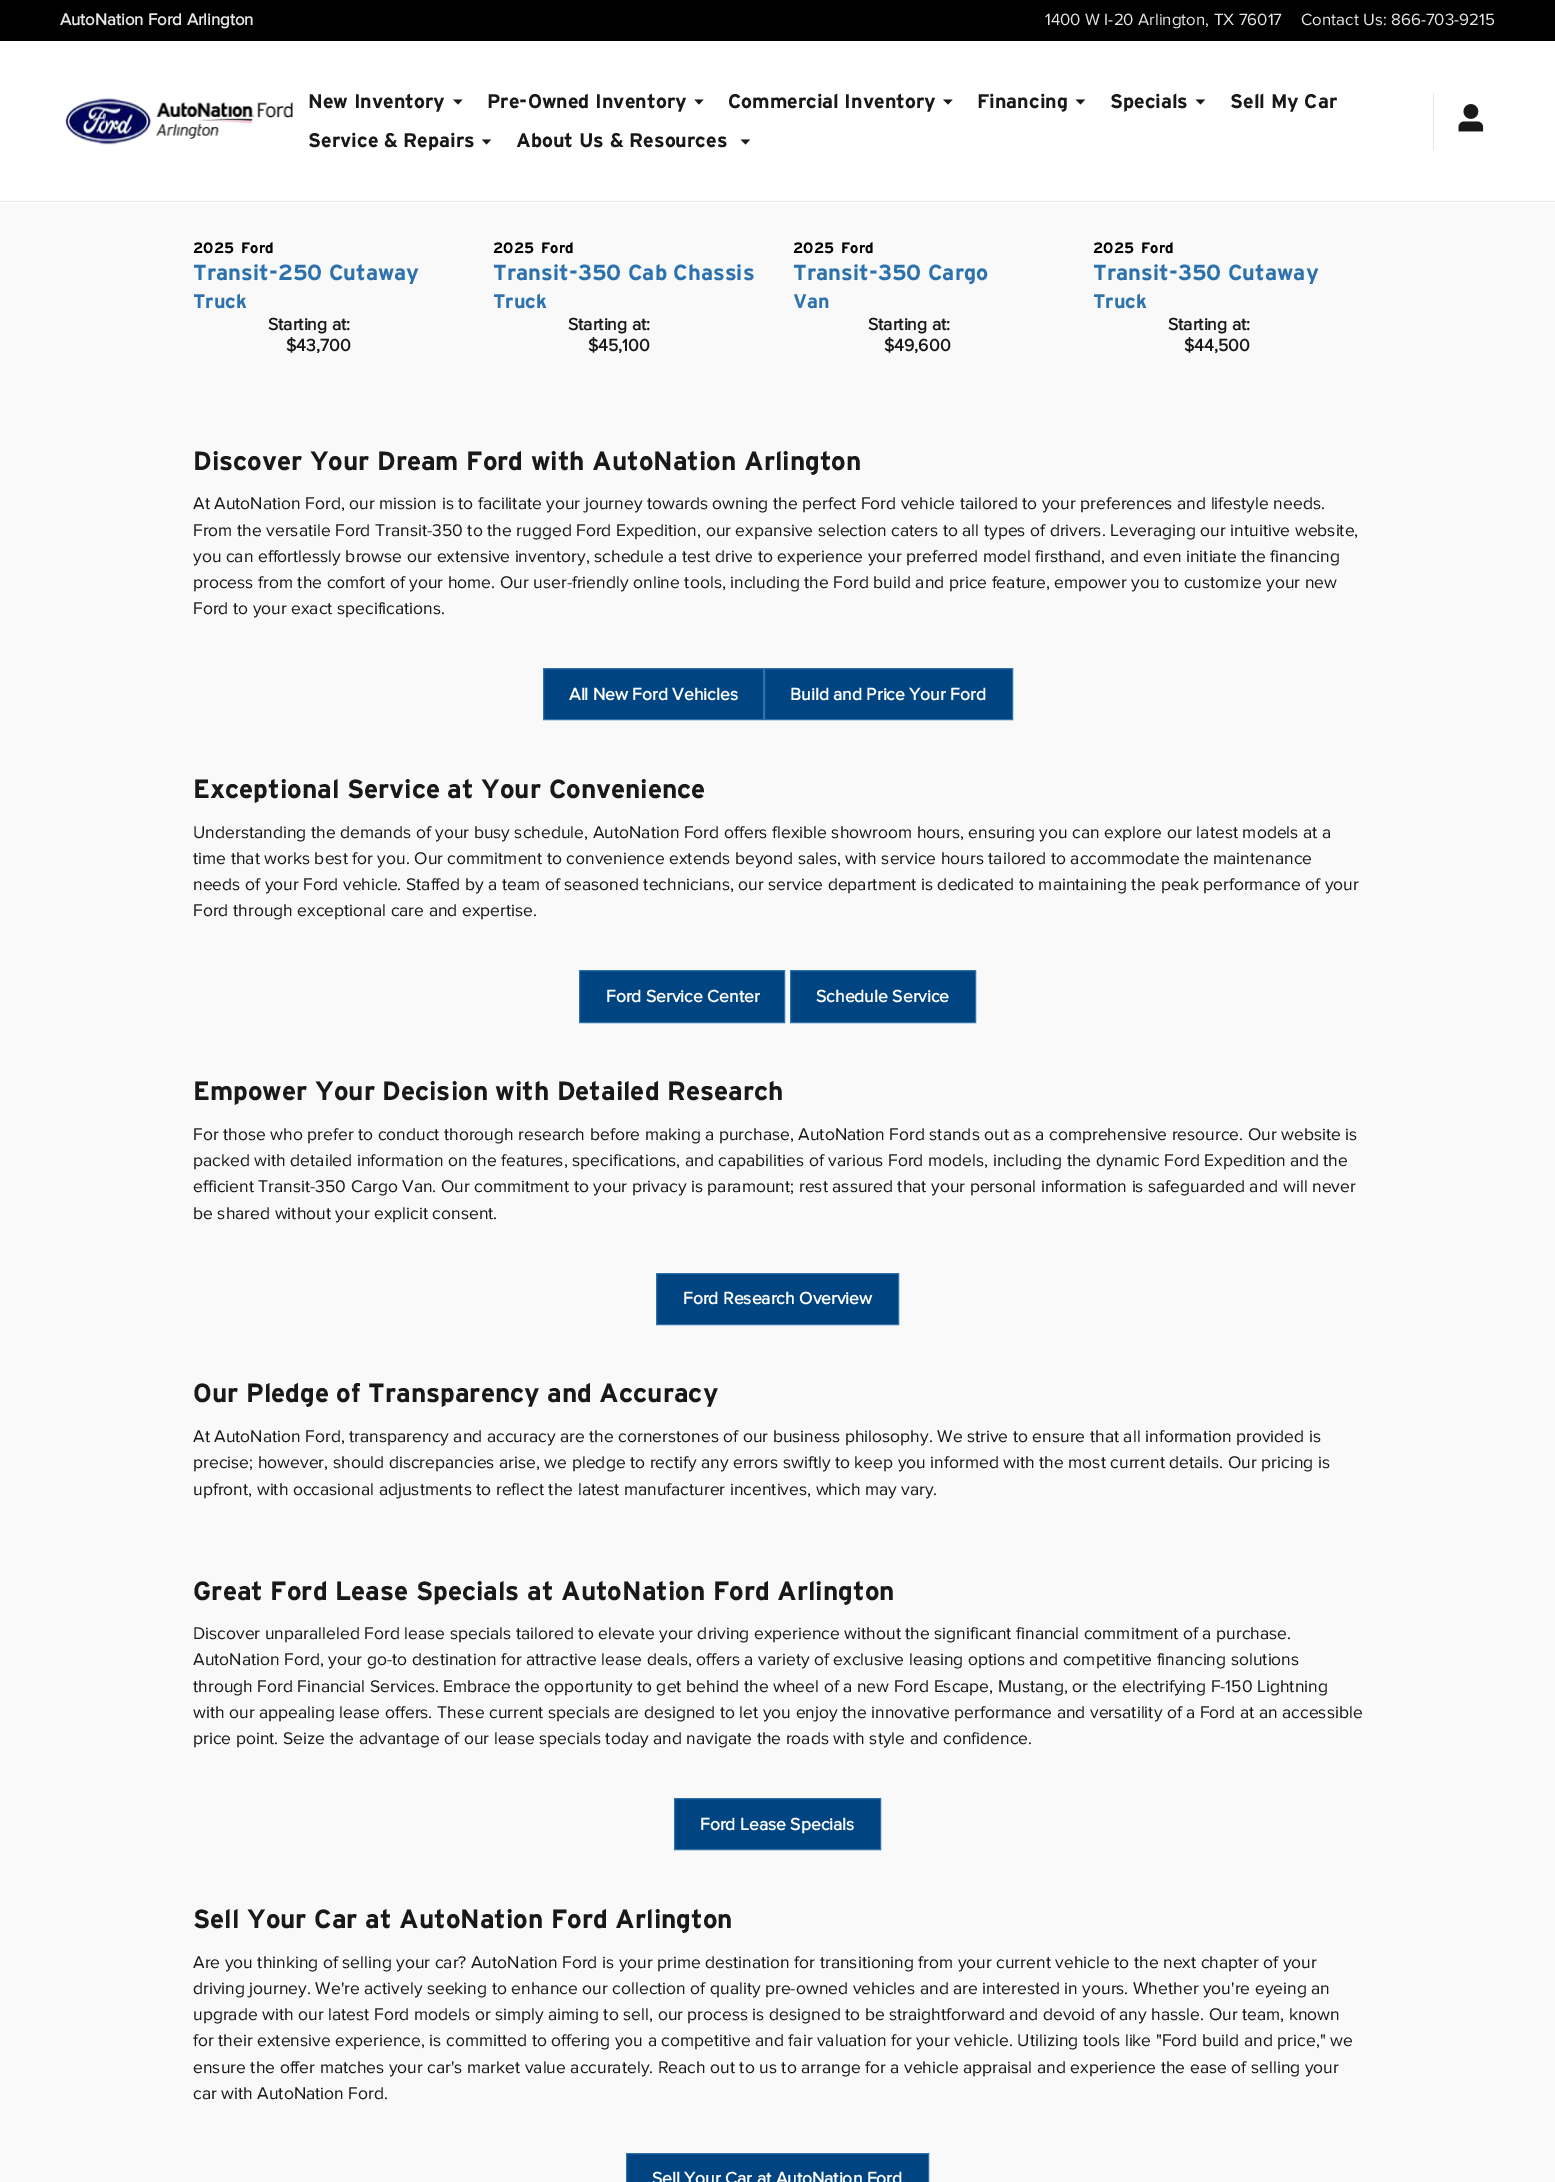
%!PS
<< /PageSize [1555 2182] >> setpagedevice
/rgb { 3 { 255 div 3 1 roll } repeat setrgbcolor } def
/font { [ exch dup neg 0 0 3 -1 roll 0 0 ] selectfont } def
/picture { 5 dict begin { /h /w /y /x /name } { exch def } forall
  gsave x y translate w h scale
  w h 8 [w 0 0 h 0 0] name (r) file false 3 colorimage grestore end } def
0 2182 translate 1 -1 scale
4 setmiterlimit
249 249 250 rgb
0 0 1555 2182 rectfill
[
  [0 41 1555 162 255 255 255]
  [0 201 1555 1 230 230 230]
  [0 0 1555 41 0 0 0]
] { aload pop rgb rectfill } forall
(img/1.rgb) 65 98 86 47 picture
(img/2.rgb) 156 102 137 37 picture
26 26 26 rgb
462.5 99.5 moveto 453 99.5 lineto 458 104.5 lineto closepath fill
703.5 99.5 moveto 694.5 99.5 lineto 699 104.5 lineto closepath fill
952.5 99.5 moveto 943 99.5 lineto 948 104.5 lineto closepath fill
1085 99.5 moveto 1075.5 99.5 lineto 1080.5 104.5 lineto closepath fill
1205 99.5 moveto 1195.5 99.5 lineto 1200.5 104.5 lineto closepath fill
491 139.5 moveto 482 139.5 lineto 486.5 144.5 lineto closepath fill
750 139.5 moveto 740.5 139.5 lineto 745.5 144.5 lineto closepath fill
230 230 230 rgb
1433 93 1 57 rectfill
(img/3.rgb) 1458 104 26 28 picture
0 69 130 rgb
543.5 668.5 moveto 763.5 668.5 lineto 763.5 719.5 lineto 543.5 719.5 lineto closepath gsave fill grestore
45 114 173 rgb
stroke
0 69 130 rgb
764.5 668.5 moveto 1012.5 668.5 lineto 1012.5 719.5 lineto 764.5 719.5 lineto closepath gsave fill grestore
45 114 173 rgb
stroke
0 69 130 rgb
579.5 970.5 moveto 784.5 970.5 lineto 784.5 1022.5 lineto 579.5 1022.5 lineto closepath gsave fill grestore
45 114 173 rgb
stroke
0 69 130 rgb
790.5 970.5 moveto 975.5 970.5 lineto 975.5 1022.5 lineto 790.5 1022.5 lineto closepath gsave fill grestore
45 114 173 rgb
stroke
0 69 130 rgb
656.5 1273.5 moveto 898.5 1273.5 lineto 898.5 1324.5 lineto 656.5 1324.5 lineto closepath gsave fill grestore
45 114 173 rgb
stroke
0 69 130 rgb
674.5 1798.5 moveto 880.5 1798.5 lineto 880.5 1849.5 lineto 674.5 1849.5 lineto closepath gsave fill grestore
45 114 173 rgb
stroke
0 69 130 rgb
626.5 2153.5 moveto 928.5 2153.5 lineto 928.5 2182.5 lineto 626.5 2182.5 lineto closepath gsave fill grestore
45 114 173 rgb
stroke
/ProximaNova-Bold 16.9 font
230 230 230 rgb
60 25 moveto (AutoNation Ford Arlington) show
/ProximaNova-Regular 16.9 font
1045 25 moveto (1400 W I-20 Arlington, TX 76017) show
1301 25 moveto (Contact Us: 866-703-9215) show
/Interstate-Bold 19.75 font
25 25 25 rgb
[
  [(New Inventory) 308 108]
  [(Pre-Owned Inventory) 487 108]
  [(Commercial Inventory) 728 108]
  [(Financing) 977 108]
  [(Specials) 1110 108]
  [(Sell My Car) 1230 108]
  [(Service & Repairs) 308 147]
  [(About Us & Resources) 516 147]
] { aload pop moveto show } forall
/Interstate-Bold 15 font
0 0 0 rgb
193 253 moveto (2025) show
241 253 moveto (Ford) show
/Interstate-Bold 21.9 font
45 114 173 rgb
193 280 moveto (Transit-250 Cutaway) show
/Interstate-Bold 19.75 font
193 308 moveto (Truck) show
/ProximaNova-Bold 17.5 font
25 25 25 rgb
268 330 moveto (Starting at:) show
286 351 moveto ($43,700) show
/Interstate-Bold 15 font
0 0 0 rgb
493 253 moveto (2025) show
541 253 moveto (Ford) show
/Interstate-Bold 21.9 font
45 114 173 rgb
493 280 moveto (Transit-350 Cab Chassis) show
/Interstate-Bold 19.75 font
493 308 moveto (Truck) show
/ProximaNova-Bold 17.5 font
25 25 25 rgb
568 330 moveto (Starting at:) show
588 351 moveto ($45,100) show
/Interstate-Bold 15 font
0 0 0 rgb
793 253 moveto (2025) show
841 253 moveto (Ford) show
/Interstate-Bold 21.9 font
45 114 173 rgb
793 280 moveto (Transit-350 Cargo) show
/Interstate-Bold 19.75 font
793 308 moveto (Van) show
/ProximaNova-Bold 17.5 font
25 25 25 rgb
868 330 moveto (Starting at:) show
884 351 moveto ($49,600) show
/Interstate-Bold 15 font
0 0 0 rgb
1093 253 moveto (2025) show
1141 253 moveto (Ford) show
/Interstate-Bold 21.9 font
45 114 173 rgb
1093 280 moveto (Transit-350 Cutaway) show
/Interstate-Bold 19.75 font
1093 308 moveto (Truck) show
/ProximaNova-Bold 17.5 font
25 25 25 rgb
1168 330 moveto (Starting at:) show
1184 351 moveto ($44,500) show
/Interstate-Bold 26.25 font
193 470 moveto (Discover Your Dream Ford with AutoNation Arlington) show
/ProximaNova-Regular 17.5 font
[
  [(At AutoNation Ford, our mission is to facilitate your journey towards owning the perfect Ford vehicle tailored to your preferences and lifestyle needs.) 193 509]
  [(From the versatile Ford Transit-350 to the rugged Ford Expedition, our expansive selection caters to all types of drivers. Leveraging our intuitive website,) 193 536]
  [(you can effortlessly browse our extensive inventory, schedule a test drive to experience your preferred model firsthand, and even initiate the financing) 193 562]
  [(process from the comfort of your home. Our user-friendly online tools, including the Ford build and price feature, empower you to customize your new) 193 588]
  [(Ford to your exact specifications.) 193 614]
] { aload pop moveto show } forall
/ProximaNova-Bold 17.5 font
255 255 255 rgb
569 700 moveto (All New Ford Vehicles) show
790 700 moveto (Build and Price Your Ford) show
/Interstate-Bold 26.25 font
25 25 25 rgb
193 798 moveto (Exceptional Service at Your Convenience) show
/ProximaNova-Regular 17.5 font
[
  [(Understanding the demands of your busy schedule, AutoNation Ford offers flexible showroom hours, ensuring you can explore our latest models at a) 193 838]
  [(time that works best for you. Our commitment to convenience extends beyond sales, with service hours tailored to accommodate the maintenance) 193 864]
  [(needs of your Ford vehicle. Staffed by a team of seasoned technicians, our service department is dedicated to maintaining the peak performance of your) 193 890]
  [(Ford through exceptional care and expertise.) 193 916]
] { aload pop moveto show } forall
/ProximaNova-Bold 17.5 font
255 255 255 rgb
606 1002 moveto (Ford Service Center) show
816 1002 moveto (Schedule Service) show
/Interstate-Bold 26.25 font
25 25 25 rgb
193 1100 moveto (Empower Your Decision with Detailed Research) show
/ProximaNova-Regular 17.5 font
[
  [(For those who prefer to conduct thorough research before making a purchase, AutoNation Ford stands out as a comprehensive resource. Our website is) 193 1140]
  [(packed with detailed information on the features, specifications, and capabilities of various Ford models, including the dynamic Ford Expedition and the) 193 1166]
  [(efficient Transit-350 Cargo Van. Our commitment to your privacy is paramount; rest assured that your personal information is safeguarded and will never) 193 1192]
  [(be shared without your explicit consent.) 193 1219]
] { aload pop moveto show } forall
/ProximaNova-Bold 17.5 font
255 255 255 rgb
683 1304 moveto (Ford Research Overview) show
/Interstate-Bold 26.25 font
25 25 25 rgb
193 1402 moveto (Our Pledge of Transparency and Accuracy) show
/ProximaNova-Regular 17.5 font
[
  [(At AutoNation Ford, transparency and accuracy are the cornerstones of our business philosophy. We strive to ensure that all information provided is) 193 1442]
  [(precise; however, should discrepancies arise, we pledge to rectify any errors swiftly to keep you informed with the most current details. Our pricing is) 193 1468]
  [(upfront, with occasional adjustments to reflect the latest manufacturer incentives, which may vary.) 193 1495]
] { aload pop moveto show } forall
/Interstate-Bold 26.25 font
193 1600 moveto (Great Ford Lease Specials at AutoNation Ford Arlington) show
/ProximaNova-Regular 17.5 font
[
  [(Discover unparalleled Ford lease specials tailored to elevate your driving experience without the significant financial commitment of a purchase.) 193 1639]
  [(AutoNation Ford, your go-to destination for attractive lease deals, offers a variety of exclusive leasing options and competitive financing solutions) 193 1665]
  [(through Ford Financial Services. Embrace the opportunity to get behind the wheel of a new Ford Escape, Mustang, or the electrifying F-150 Lightning) 193 1692]
  [(with our appealing lease offers. These current specials are designed to let you enjoy the innovative performance and versatility of a Ford at an accessible) 193 1718]
  [(price point. Seize the advantage of our lease specials today and navigate the roads with style and confidence.) 193 1744]
] { aload pop moveto show } forall
/ProximaNova-Bold 17.5 font
255 255 255 rgb
700 1830 moveto (Ford Lease Specials) show
/Interstate-Bold 26.25 font
25 25 25 rgb
193 1928 moveto (Sell Your Car at AutoNation Ford Arlington) show
/ProximaNova-Regular 17.5 font
[
  [(Are you thinking of selling your car? AutoNation Ford is your prime destination for transitioning from your current vehicle to the next chapter of your) 193 1968]
  [(driving journey. We're actively seeking to enhance our collection of quality pre-owned vehicles and are interested in yours. Whether you're eyeing an) 193 1994]
  [(upgrade with our latest Ford models or simply aiming to sell, our process is designed to be straightforward and devoid of any hassle. Our team, known) 193 2020]
  [(for their extensive experience, is committed to offering you a competitive and fair valuation for your vehicle. Utilizing tools like "Ford build and price," we) 193 2046]
  [(ensure the offer matches your car's market value accurately. Reach out to us to arrange for a vehicle appraisal and experience the ease of selling your) 193 2073]
  [(car with AutoNation Ford.) 193 2099]
] { aload pop moveto show } forall
/ProximaNova-Bold 17.5 font
255 255 255 rgb
652 2184 moveto (Sell Your Car at AutoNation Ford) show
showpage
